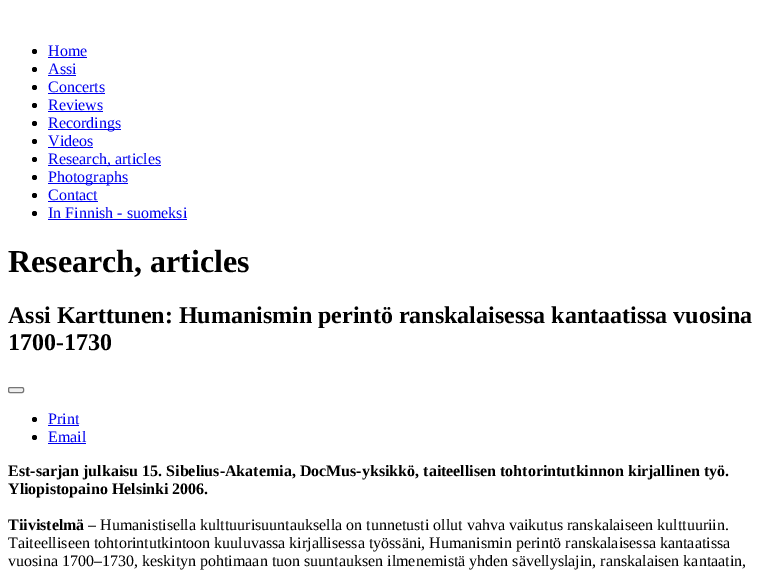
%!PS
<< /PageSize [761 576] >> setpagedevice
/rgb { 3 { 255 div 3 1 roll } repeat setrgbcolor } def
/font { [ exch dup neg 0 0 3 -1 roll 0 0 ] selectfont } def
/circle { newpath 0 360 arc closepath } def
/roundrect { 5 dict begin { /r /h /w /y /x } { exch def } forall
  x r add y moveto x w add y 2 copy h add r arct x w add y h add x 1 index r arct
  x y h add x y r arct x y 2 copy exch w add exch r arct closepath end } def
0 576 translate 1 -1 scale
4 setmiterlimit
255 255 255 rgb
0 0 761 576 rectfill
0 0 0 rgb
34.5 51.5 2.5 circle fill
0 0 238 rgb
48 57 39 1 rectfill
0 0 0 rgb
34.5 69.5 2.5 circle fill
0 0 238 rgb
48 75 28 1 rectfill
0 0 0 rgb
34.5 87.5 2.5 circle fill
0 0 238 rgb
48 93 57 1 rectfill
0 0 0 rgb
34.5 105.5 2.5 circle fill
0 0 238 rgb
48 111 55 1 rectfill
0 0 0 rgb
34.5 123.5 2.5 circle fill
0 0 238 rgb
48 129 73 1 rectfill
0 0 0 rgb
34.5 141.5 2.5 circle fill
0 0 238 rgb
48 147 45 1 rectfill
0 0 0 rgb
34.5 159.5 2.5 circle fill
0 0 238 rgb
48 165 113 1 rectfill
0 0 0 rgb
34.5 177.5 2.5 circle fill
0 0 238 rgb
48 183 80 1 rectfill
0 0 0 rgb
34.5 195.5 2.5 circle fill
0 0 238 rgb
48 201 50 1 rectfill
0 0 0 rgb
34.5 213.5 2.5 circle fill
0 0 238 rgb
48 219 139 1 rectfill
239 239 239 rgb
8.5 387.5 15 5 1.5 roundrect gsave fill grestore
118 118 118 rgb
stroke
0 0 0 rgb
34.5 419.5 2.5 circle fill
0 0 238 rgb
48 425 31 1 rectfill
0 0 0 rgb
34.5 437.5 2.5 circle fill
0 0 238 rgb
48 443 38 1 rectfill
/LiberationSerif-Regular 16 font
[
  [(Home) 48 56]
  [(Assi) 48 74]
  [(Concerts) 48 92]
  [(Reviews) 48 110]
  [(Recordings) 48 128]
  [(Videos) 48 146]
  [(Research, articles) 48 164]
  [(Photographs) 48 182]
  [(Contact) 48 200]
  [(In Finnish - suomeksi) 48 218]
] { aload pop moveto show } forall
/LiberationSerif-Bold 32 font
0 0 0 rgb
8 272 moveto (Research, articles) show
/LiberationSerif-Bold 24 font
8 323 moveto (Assi Karttunen: Humanismin perintö ranskalaisessa kantaatissa vuosina) show
8 350 moveto (1700-1730) show
/LiberationSerif-Regular 16 font
0 0 238 rgb
48 424 moveto (Print) show
48 442 moveto (Email) show
/LiberationSerif-Bold 16 font
0 0 0 rgb
[
  [(Est-sarjan julkaisu 15. Sibelius-Akatemia, DocMus-yksikkö, taiteellisen tohtorintutkinnon kirjallinen työ.) 8 476]
  [(Yliopistopaino Helsinki 2006.) 8 494]
  [(Tiivistelmä) 8 530]
] { aload pop moveto show } forall
/LiberationSerif-Regular 16 font
[
  [(– Humanistisella kulttuurisuuntauksella on tunnetusti ollut vahva vaikutus ranskalaiseen kulttuuriin.) 88 530]
  [(Taiteelliseen tohtorintutkintoon kuuluvassa kirjallisessa työssäni, Humanismin perintö ranskalaisessa kantaatissa) 8 548]
  [(vuosina 1700–1730, keskityn pohtimaan tuon suuntauksen ilmenemistä yhden sävellyslajin, ranskalaisen kantaatin,) 8 566]
] { aload pop moveto show } forall
showpage
